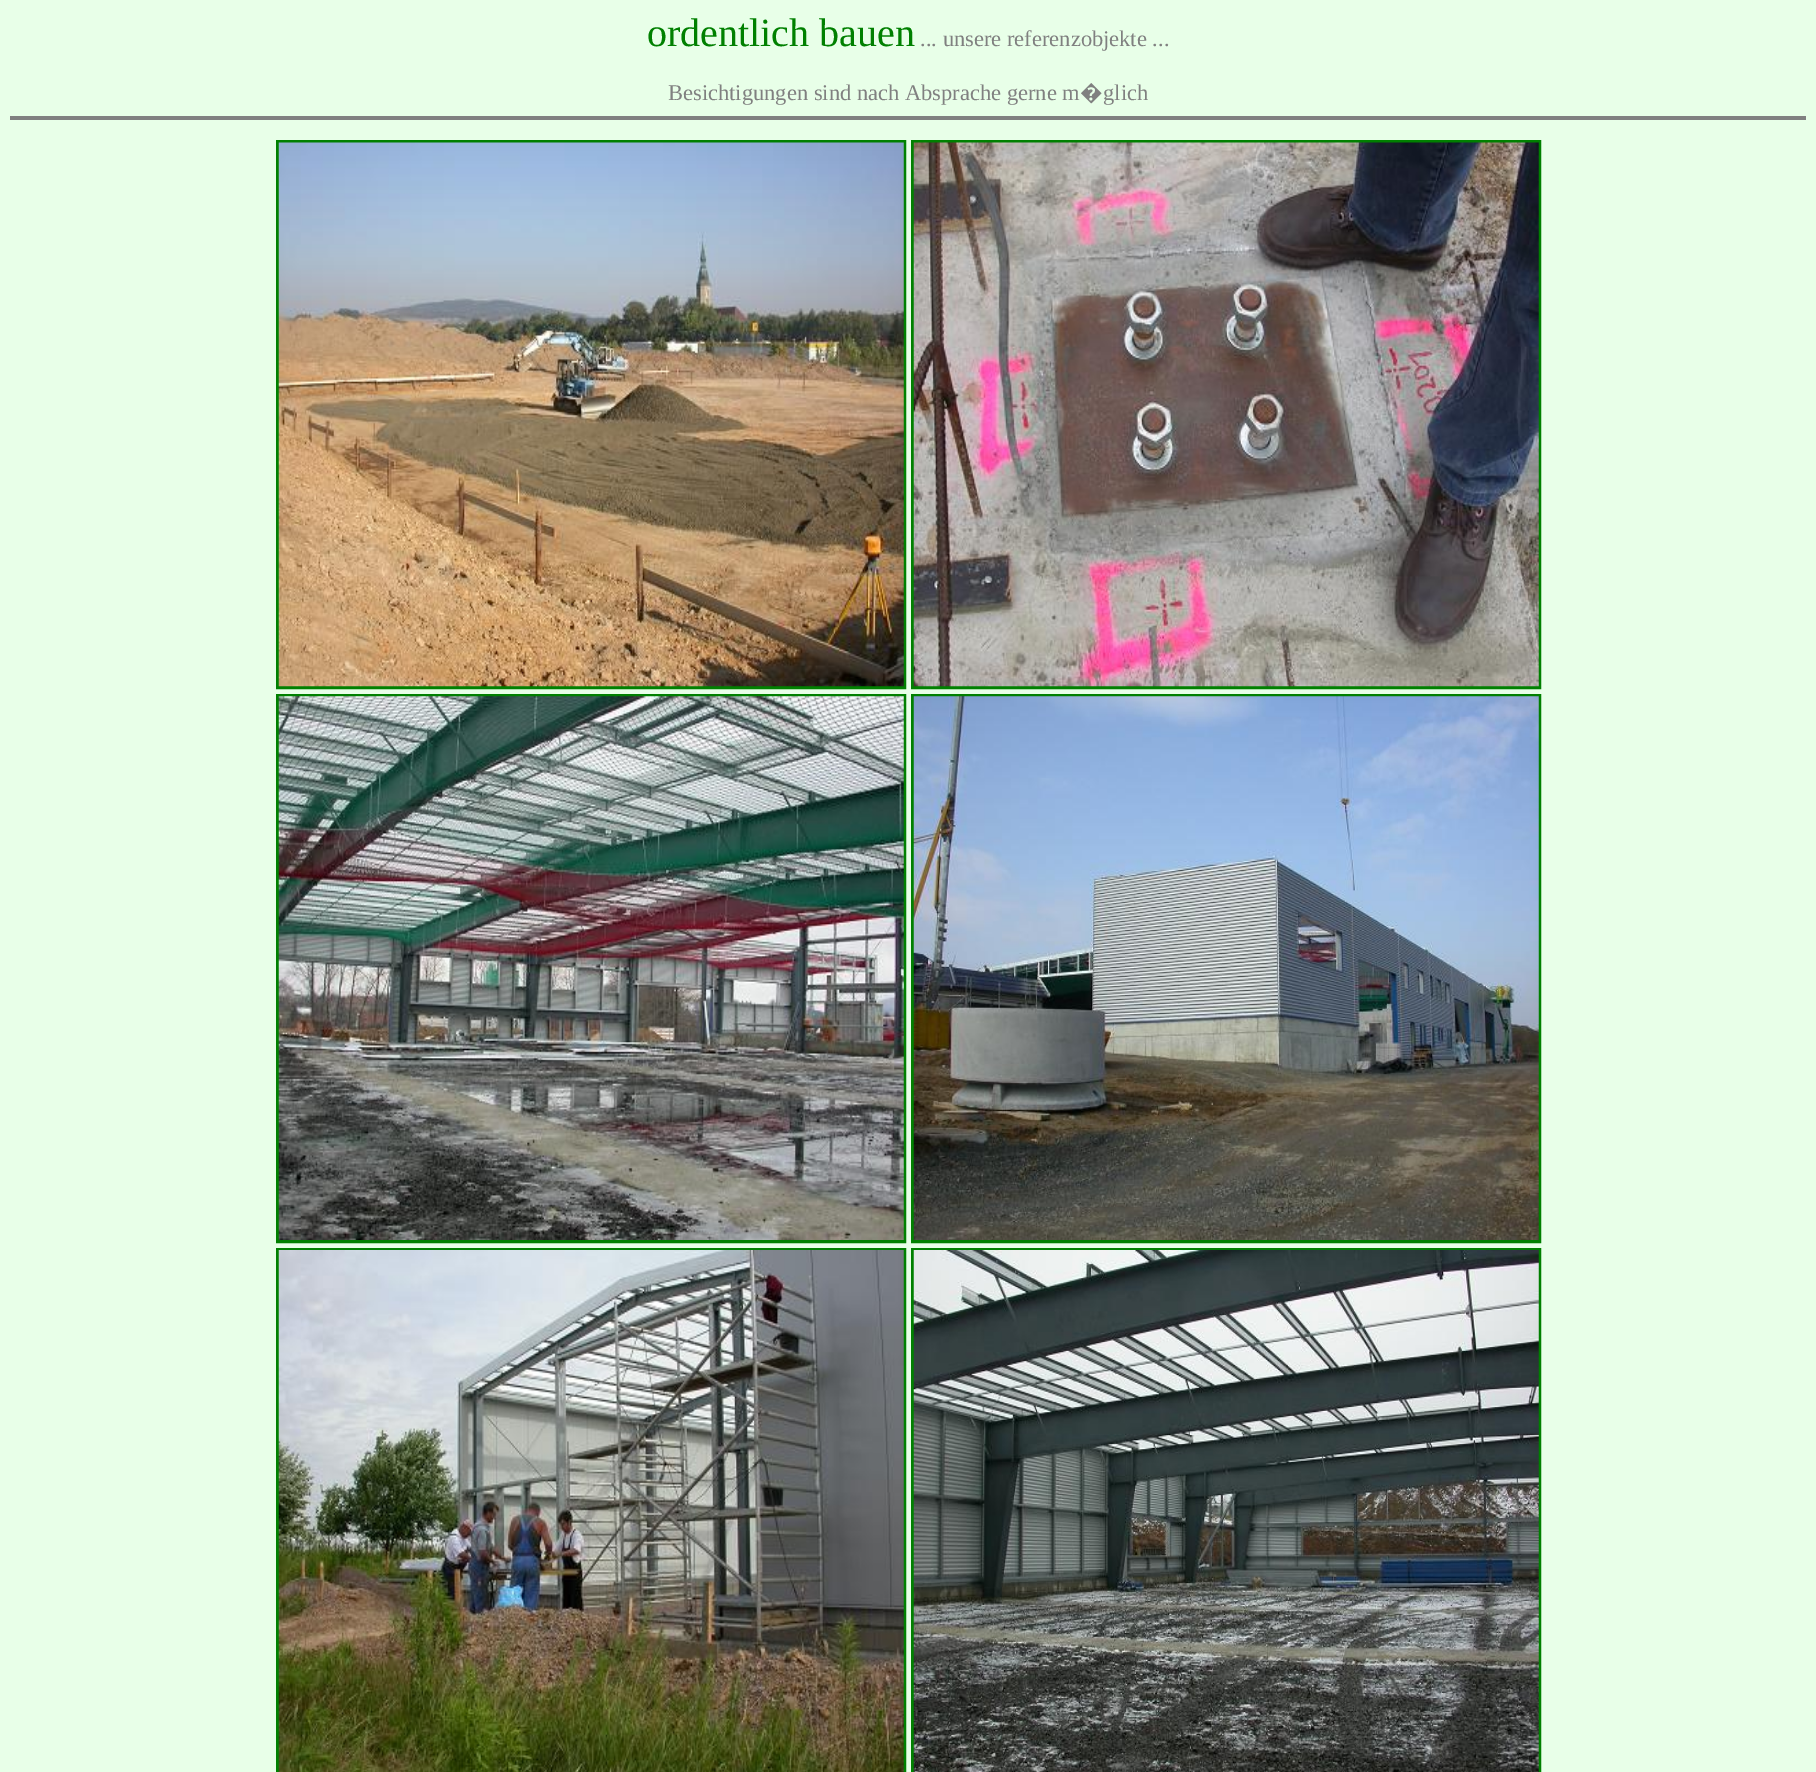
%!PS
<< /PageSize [1816 1772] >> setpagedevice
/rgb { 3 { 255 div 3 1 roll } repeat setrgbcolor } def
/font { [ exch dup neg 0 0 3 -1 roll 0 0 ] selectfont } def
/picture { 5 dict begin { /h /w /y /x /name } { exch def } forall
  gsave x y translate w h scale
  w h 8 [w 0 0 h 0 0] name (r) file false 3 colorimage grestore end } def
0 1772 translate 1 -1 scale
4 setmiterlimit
232 255 232 rgb
0 0 1816 1772 rectfill
128 128 128 rgb
10 116 1796 4 rectfill
0 128 0 rgb
3 setlinewidth
277.5 141.5 627 546 rectstroke
912.5 141.5 627 546 rectstroke
(img/1.rgb) 278 142 626 545 picture
(img/2.rgb) 913 142 626 545 picture
277.5 695.5 627 546 rectstroke
912.5 695.5 627 546 rectstroke
(img/3.rgb) 278 696 626 544 picture
(img/4.rgb) 913 696 626 544 picture
277.5 1249.5 627 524 rectstroke
912.5 1249.5 627 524 rectstroke
(img/5.rgb) 278 1250 626 522 picture
(img/6.rgb) 913 1250 626 522 picture
/LiberationSerif-Regular 40 font
647 46 moveto (ordentlich bauen) show
/LiberationSerif-Regular 22.5 font
128 128 128 rgb
920 46 moveto (... unsere referenzobjekte ...) show
668 100 moveto (Besichtigungen sind nach Absprache gerne m) show
/NotoSans-Regular 22.5 font
1080 100 moveto (�) show
/LiberationSerif-Regular 22.5 font
1103 100 moveto (glich) show
showpage
